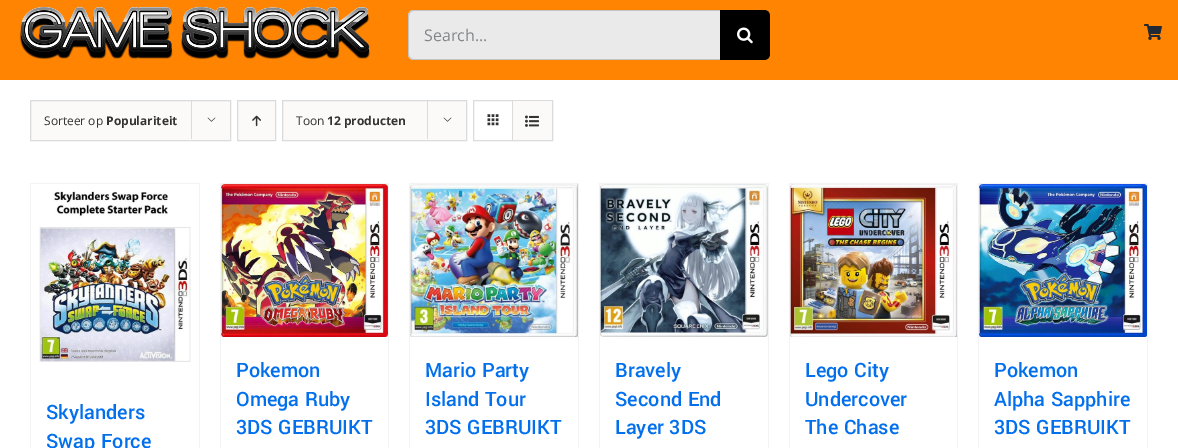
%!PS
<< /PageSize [1178 448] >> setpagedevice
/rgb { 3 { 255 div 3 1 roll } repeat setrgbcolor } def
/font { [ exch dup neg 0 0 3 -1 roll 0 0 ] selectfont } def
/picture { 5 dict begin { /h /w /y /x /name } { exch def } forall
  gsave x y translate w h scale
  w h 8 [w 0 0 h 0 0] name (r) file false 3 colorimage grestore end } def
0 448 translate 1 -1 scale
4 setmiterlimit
255 255 255 rgb
0 0 1178 448 rectfill
255 132 2 rgb
0 0 1178 80 rectfill
(img/1.rgb) 19 6 351 54 picture
234 234 234 rgb
414 10 moveto 720 10 lineto 720 60 lineto 414 60 lineto 410.5 60 408 57.5 408 54 curveto 408 16 lineto 408 12.5 410.5 10 414 10 curveto closepath fill
196 196 196 rgb
414 10 moveto 720 10 lineto 720 60 lineto 414 60 lineto 411 60 408 57 408 54 curveto 408 16 lineto 408 13 411 10 414 10 curveto closepath 414 11 moveto 720 11 lineto 720 59 lineto 414 59 lineto 411 59 409 57 409 54 curveto 409 16 lineto 409 13 411 11 414 11 curveto closepath eofill
0 0 0 rgb
720 10 moveto 764 10 lineto 767.5 10 770 12.5 770 16 curveto 770 54 lineto 770 57.5 767.5 60 764 60 curveto 720 60 lineto closepath fill
(img/2.rgb) 737 27 16 17 picture
(img/3.rgb) 1144 24 18 16 picture
251 250 249 rgb
30.5 100.5 moveto 230.5 100.5 lineto 230.5 140.5 lineto 30.5 140.5 lineto closepath gsave fill grestore
219 219 219 rgb
stroke
191 100 1 39 rectfill
(img/4.rgb) 207 117 9 5 picture
251 250 249 rgb
237.5 100.5 moveto 275.5 100.5 lineto 275.5 140.5 lineto 237.5 140.5 lineto closepath gsave fill grestore
219 219 219 rgb
stroke
(img/5.rgb) 252 115 9 12 picture
251 250 249 rgb
282.5 100.5 moveto 466.5 100.5 lineto 466.5 140.5 lineto 282.5 140.5 lineto closepath gsave fill grestore
219 219 219 rgb
stroke
427 100 1 39 rectfill
(img/4.rgb) 443 117 9 5 picture
473.5 100.5 79 40 rectstroke
512 101 1 39 rectfill
(img/6.rgb) 487 114 12 12 picture
251 250 249 rgb
513 101 39 39 rectfill
(img/7.rgb) 525 115 14 12 picture
[
  [30 183 170 1 242 243 245]
  [199 183 1 265 242 243 245]
  [30 183 1 265 242 243 245]
] { aload pop rgb rectfill } forall
(img/8.rgb) 39 191 152 171 picture
[
  [220 183 169 1 242 243 245]
  [388 183 1 265 242 243 245]
  [220 183 1 265 242 243 245]
] { aload pop rgb rectfill } forall
(img/9.rgb) 221 184 167 153 picture
[
  [409 183 170 1 242 243 245]
  [578 183 1 265 242 243 245]
  [409 183 1 265 242 243 245]
] { aload pop rgb rectfill } forall
(img/10.rgb) 410 184 168 153 picture
[
  [599 183 170 1 242 243 245]
  [768 183 1 265 242 243 245]
  [599 183 1 265 242 243 245]
] { aload pop rgb rectfill } forall
(img/11.rgb) 600 184 168 153 picture
[
  [789 183 169 1 242 243 245]
  [957 183 1 265 242 243 245]
  [789 183 1 265 242 243 245]
] { aload pop rgb rectfill } forall
(img/12.rgb) 790 184 167 153 picture
[
  [978 183 170 1 242 243 245]
  [1147 183 1 265 242 243 245]
  [978 183 1 265 242 243 245]
] { aload pop rgb rectfill } forall
(img/13.rgb) 979 184 168 153 picture
/OpenSans-Regular 16 font
130 133 137 rgb
424 41 moveto (Search...) show
/OpenSans-Regular 12 font
51 51 51 rgb
44 125 moveto (Sorteer op) show
/OpenSans-Bold 12 font
106 125 moveto (Populariteit) show
/OpenSans-Regular 12 font
296 125 moveto (Toon) show
/OpenSans-Bold 12 font
327 125 moveto (12 producten) show
/Yantramanav-Medium 22 font
2 111 237 rgb
[
  [(Skylanders) 46 419]
  [(Swap Force) 46 448]
  [(Pokemon) 236 377]
  [(Omega Ruby) 236 406]
  [(3DS GEBRUIKT) 236 434]
  [(Mario Party) 425 377]
  [(Island Tour) 425 406]
  [(3DS GEBRUIKT) 425 434]
  [(Bravely) 615 377]
  [(Second End) 615 406]
  [(Layer 3DS) 615 434]
  [(Lego City) 805 377]
  [(Undercover) 805 406]
  [(The Chase) 805 434]
  [(Pokemon) 994 377]
  [(Alpha Sapphire) 994 406]
  [(3DS GEBRUIKT) 994 434]
] { aload pop moveto show } forall
showpage
